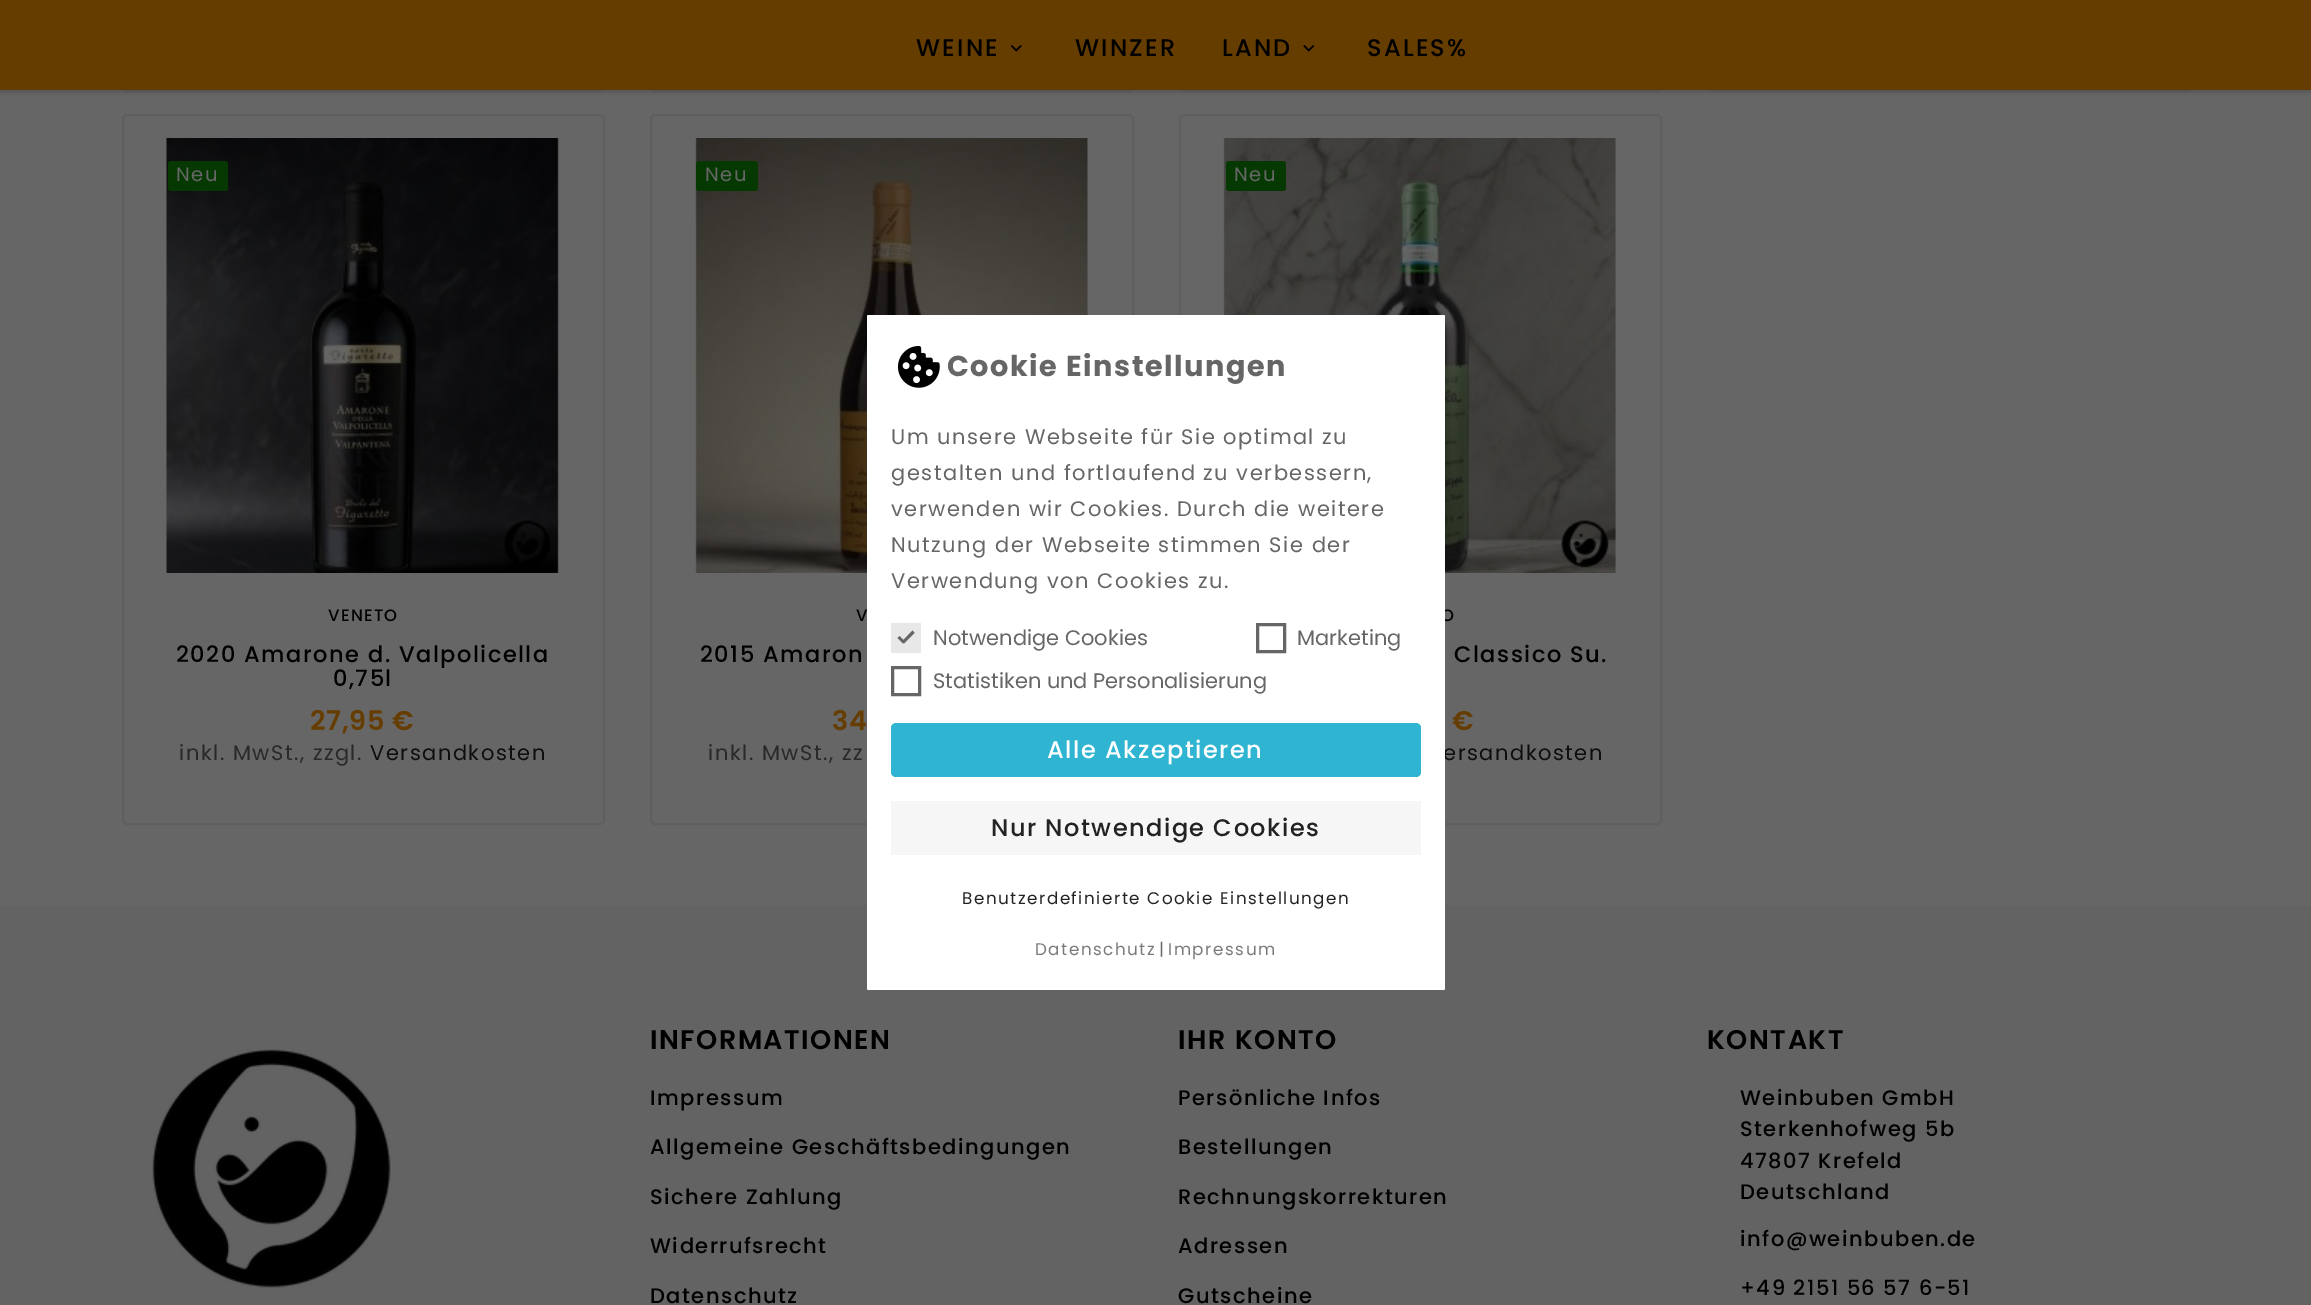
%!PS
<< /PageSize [2311 1305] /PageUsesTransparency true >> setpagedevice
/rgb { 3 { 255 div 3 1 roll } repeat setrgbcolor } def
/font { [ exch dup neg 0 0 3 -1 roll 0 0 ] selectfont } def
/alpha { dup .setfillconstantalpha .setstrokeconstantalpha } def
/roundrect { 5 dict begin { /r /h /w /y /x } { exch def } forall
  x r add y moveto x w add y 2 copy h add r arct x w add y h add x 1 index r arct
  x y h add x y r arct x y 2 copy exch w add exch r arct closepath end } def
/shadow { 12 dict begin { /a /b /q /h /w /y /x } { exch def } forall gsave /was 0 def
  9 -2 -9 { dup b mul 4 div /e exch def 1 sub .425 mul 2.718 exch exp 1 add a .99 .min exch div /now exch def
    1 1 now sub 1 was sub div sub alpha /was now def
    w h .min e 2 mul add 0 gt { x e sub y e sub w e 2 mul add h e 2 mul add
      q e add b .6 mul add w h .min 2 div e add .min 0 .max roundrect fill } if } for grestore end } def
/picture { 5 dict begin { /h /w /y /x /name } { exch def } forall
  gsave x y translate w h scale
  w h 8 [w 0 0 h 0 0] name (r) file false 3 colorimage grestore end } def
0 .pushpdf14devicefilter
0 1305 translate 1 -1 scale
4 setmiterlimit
102 102 102 rgb
0 0 2311 1305 rectfill
95 95 95 rgb
2 setlinewidth
123 -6 481 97 4 roundrect stroke
651 -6 482 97 4 roundrect stroke
1180 -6 481 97 4 roundrect stroke
1708 -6 483 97 4 roundrect stroke
51 51 51 rgb
-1 0 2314 93 0 2 0.27 shadow
102 61 0 rgb
0 0 2311 90 rectfill
(img/1.rgb) 1010 44 12 8 picture
(img/2.rgb) 1303 44 12 8 picture
95 95 95 rgb
123 115 481 709 4 roundrect stroke
(img/3.rgb) 166 138 393 435 picture
5 57 1 rgb
168 161 60 30 3 roundrect fill
95 95 95 rgb
651 115 482 709 4 roundrect stroke
(img/4.rgb) 692 138 398 435 picture
5 57 1 rgb
696 161 62 30 3 roundrect fill
95 95 95 rgb
1180 115 481 709 4 roundrect stroke
(img/5.rgb) 1214 138 406 435 picture
5 57 1 rgb
1226 161 60 30 3 roundrect fill
99 99 99 rgb
0 906 2311 399 rectfill
(img/6.rgb) 152 1049 239 239 picture
/Poppins-Medium 24 font
0 0 0 rgb
916 56 moveto 2.25 0 (WEINE) ashow
1075 56 moveto 2.25 0 (WINZER) ashow
1222 56 moveto 2.25 0 (LAND) ashow
1367 56 moveto 2.25 0 (SALES%) ashow
/Poppins-Regular 19.5 font
102 102 102 rgb
176 181 moveto 1.5 0 (Neu) ashow
/Poppins-Medium 16.5 font
0 0 0 rgb
328 621 moveto 1.25 0 (VENETO) ashow
/Poppins-Medium 22.5 font
176 662 moveto 1.5 0 (2020 Amarone d. Valpolicella) ashow
333 686 moveto 1.5 0 (0,75l) ashow
/Poppins-SemiBold 27 font
102 61 0 rgb
310 730 moveto 0.75 0 (27,95 €) ashow
/Poppins-Regular 21 font
41 41 41 rgb
179 760 moveto 1.5 0 (inkl. MwSt., zzgl.) ashow
14 14 14 rgb
370 760 moveto 1.5 0 (Versandkosten) ashow
/Poppins-Regular 19.5 font
102 102 102 rgb
705 181 moveto 1.5 0 (Neu) ashow
/Poppins-Medium 16.5 font
0 0 0 rgb
856 621 moveto 1.25 0 (V) ashow
/Poppins-Medium 22.5 font
700 662 moveto 1.5 0 (2015 Amaron) ashow
/Poppins-SemiBold 27 font
102 61 0 rgb
832 730 moveto 0.75 0 (34) ashow
/Poppins-Regular 21 font
41 41 41 rgb
708 760 moveto 1.5 0 (inkl. MwSt., zz) ashow
/Poppins-Regular 19.5 font
102 102 102 rgb
1234 181 moveto 1.5 0 (Neu) ashow
/Poppins-Medium 16.5 font
0 0 0 rgb
1441 621 moveto 1.25 0 (O) ashow
/Poppins-Medium 22.5 font
1454 662 moveto 1.5 0 (Classico Su.) ashow
/Poppins-SemiBold 27 font
102 61 0 rgb
1452 730 moveto 0.75 0 (€) ashow
/Poppins-Regular 21 font
14 14 14 rgb
1443 760 moveto 1.5 0 (ersandkosten) ashow
/Poppins-SemiBold 27 font
0 0 0 rgb
650 1049 moveto 1.5 0 (INFORMATIONEN) ashow
/Poppins-Medium 21 font
650 1105 moveto 1.5 0 (Impressum) ashow
650 1154 moveto 1.5 0 (Allgemeine Geschäftsbedingungen) ashow
650 1204 moveto 1.5 0 (Sichere Zahlung) ashow
650 1253 moveto 1.5 0 (Widerrufsrecht) ashow
650 1303 moveto 1.5 0 (Datenschutz) ashow
/Poppins-SemiBold 27 font
1178 1049 moveto 1.5 0 (IHR KONTO) ashow
/Poppins-Medium 21 font
1178 1105 moveto 1.5 0 (Persönliche Infos) ashow
1178 1154 moveto 1.5 0 (Bestellungen) ashow
1178 1204 moveto 1.5 0 (Rechnungskorrekturen) ashow
1178 1253 moveto 1.5 0 (Adressen) ashow
1178 1303 moveto 1.5 0 (Gutscheine) ashow
/Poppins-SemiBold 27 font
1707 1049 moveto 1.5 0 (KONTAKT) ashow
/Poppins-Medium 21 font
1740 1105 moveto 1.5 0 (Weinbuben GmbH) ashow
1740 1136 moveto 1.5 0 (Sterkenhofweg 5b) ashow
1740 1168 moveto 1.5 0 (47807 Krefeld) ashow
1740 1199 moveto 1.5 0 (Deutschland) ashow
1740 1246 moveto 1.5 0 (info@weinbuben.de) ashow
1740 1295 moveto 1.5 0 (+49 2151 56 57 6-51) ashow
255 255 255 rgb
867 315 578 675 1.5 roundrect fill
(img/7.rgb) 898 346 42 42 picture
/Poppins-Bold 28.75 font
102 102 102 rgb
947 376 moveto 1.5 0 (Cookie Einstellungen) ashow
/Poppins-Regular 21 font
891 444 moveto 1.5 0 (Um unsere Webseite für Sie optimal zu) ashow
891 480 moveto 1.5 0 (gestalten und fortlaufend zu verbessern,) ashow
891 516 moveto 1.5 0 (verwenden wir Cookies. Durch die weitere) ashow
891 552 moveto 1.5 0 (Nutzung der Webseite stimmen Sie der) ashow
891 588 moveto 1.5 0 (Verwendung von Cookies zu.) ashow
232 232 232 rgb
891 623 30 30 rectfill
102 102 102 rgb
912.5 630.5 moveto 914.5 633 lineto 904 643.5 lineto 902 641.5 lineto closepath fill
899.5 636 moveto 905 641.5 lineto 903 643.5 lineto 897.5 638 lineto closepath fill
933 645 moveto (Notwendige Cookies) show
3 setlinewidth
1257.5 624.5 27 27 rectstroke
1297 645 moveto (Marketing) show
892.5 667.5 27 27 rectstroke
933 688 moveto (Statistiken und Personalisierung) show
47 181 210 rgb
891 723 530 54 5 roundrect fill
/Poppins-Medium 24 font
255 255 255 rgb
1047 758 moveto 1.5 0 (Alle Akzeptieren) ashow
246 246 246 rgb
891 801 530 54 rectfill
35 35 35 rgb
991 836 moveto 1.5 0 (Nur Notwendige Cookies) ashow
/Poppins-Regular 16.8 font
962 904 moveto 1.5 0 (Benutzerdefinierte Cookie Einstellungen) ashow
122 122 122 rgb
1035 955 moveto 1.5 0 (Datenschutz) ashow
102 102 102 rgb
1159 955 moveto 1.5 0 (|) ashow
122 122 122 rgb
1168 955 moveto 1.5 0 (Impressum) ashow
.poppdf14devicefilter showpage
